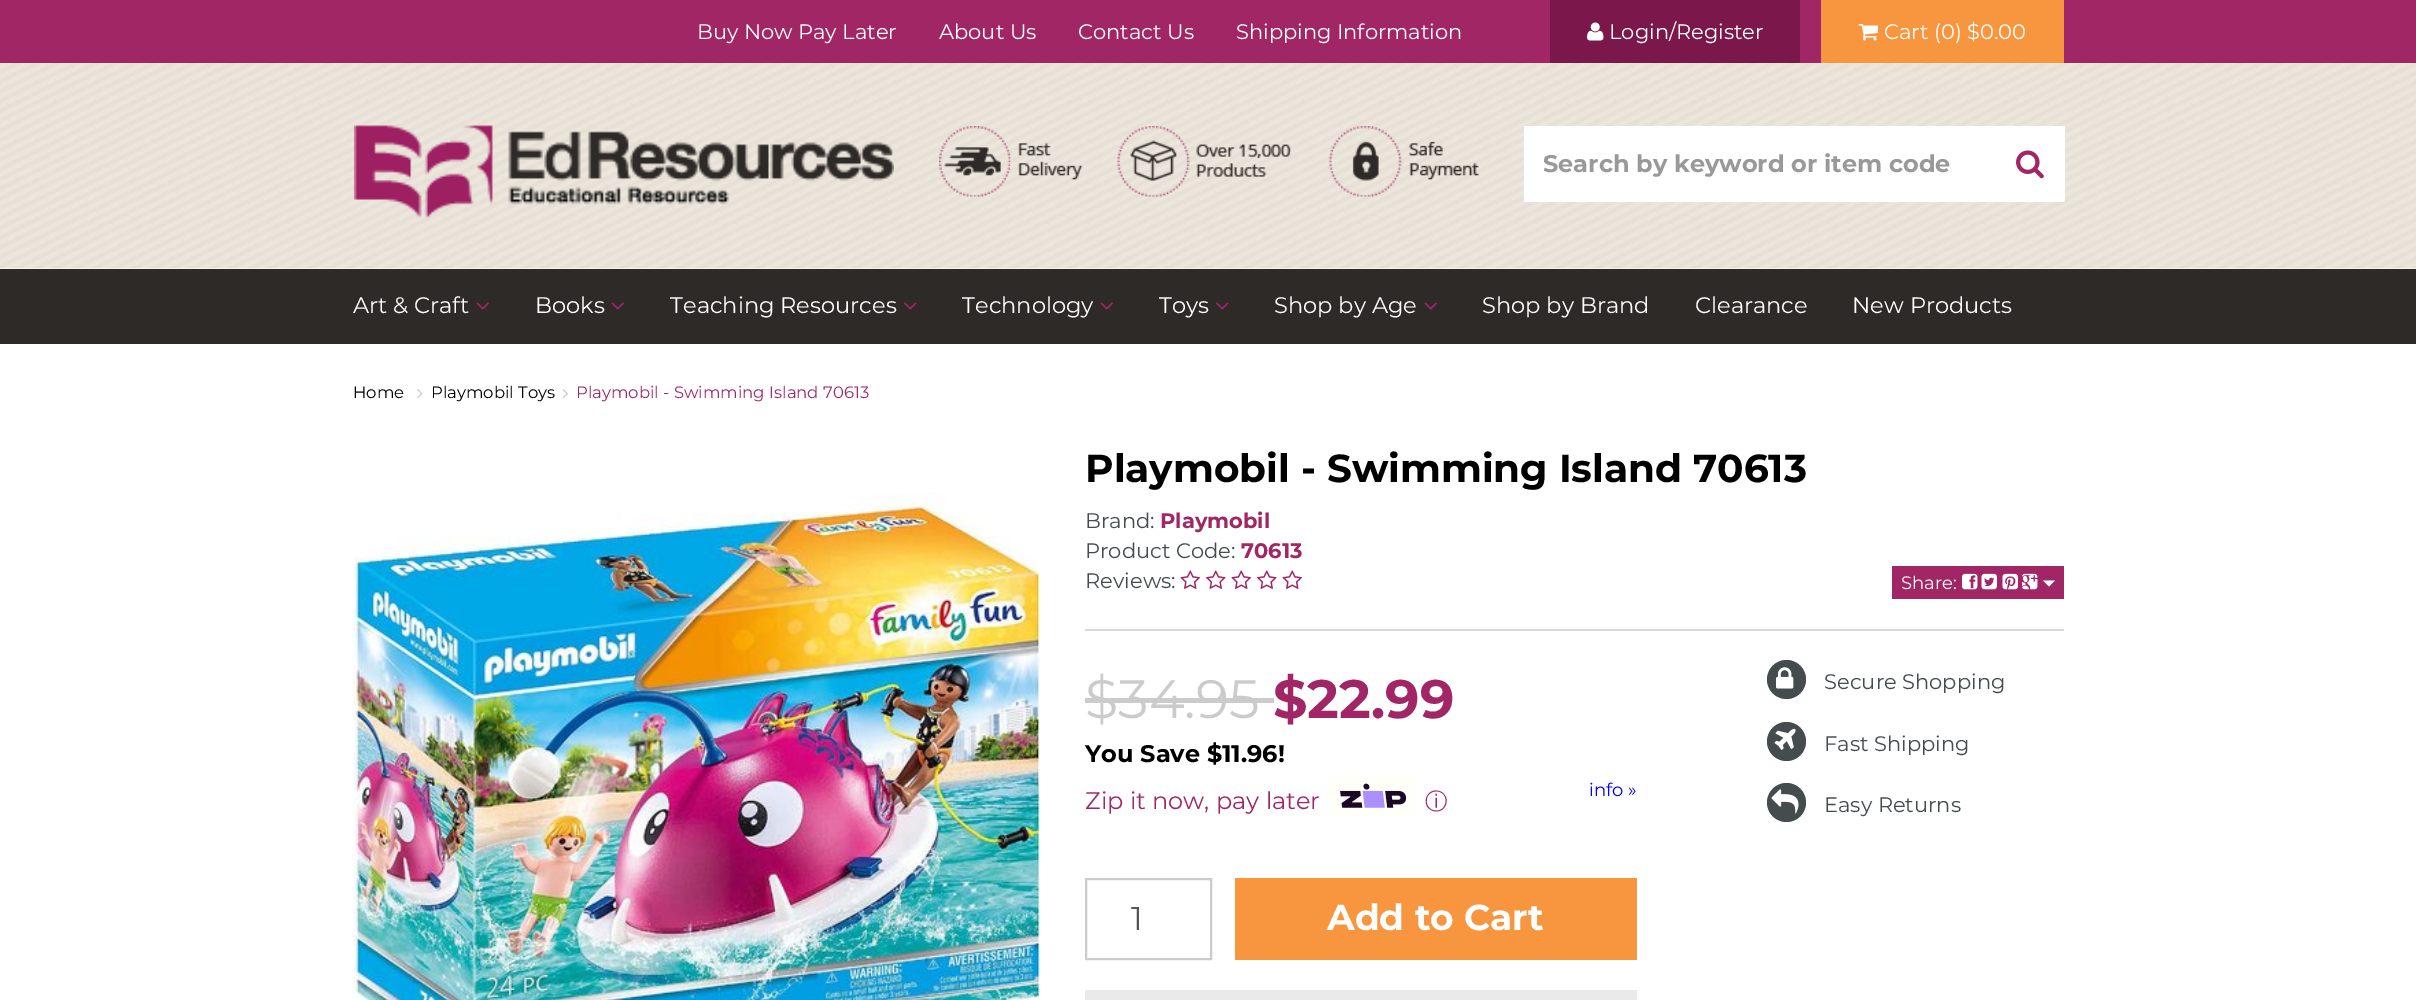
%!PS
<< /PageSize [2416 1000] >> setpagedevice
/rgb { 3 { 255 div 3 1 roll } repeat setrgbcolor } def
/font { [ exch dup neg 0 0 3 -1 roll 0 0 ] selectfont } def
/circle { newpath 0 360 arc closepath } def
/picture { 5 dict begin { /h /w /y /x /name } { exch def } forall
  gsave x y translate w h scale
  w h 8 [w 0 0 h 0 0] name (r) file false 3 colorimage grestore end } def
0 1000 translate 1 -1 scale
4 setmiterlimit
255 255 255 rgb
0 0 2416 1000 rectfill
161 38 101 rgb
0 0 2416 63 rectfill
123 23 75 rgb
1550 0 250 63 rectfill
(img/1.rgb) 1587 22 17 19 picture
248 150 63 rgb
1821 0 243 63 rectfill
(img/2.rgb) 1858 24 20 17 picture
(img/3.rgb) 0 63 2416 206 picture
(img/4.rgb) 354 125 540 94 picture
(img/5.rgb) 939 126 540 71 picture
[
  [1524 126 539 74 255 255 255]
  [1524 200 476 2 255 255 255]
  [2063 126 2 75 255 255 255]
  [1998 200 66 2 255 255 255]
] { aload pop rgb rectfill } forall
(img/6.rgb) 2016 150 28 29 picture
46 42 39 rgb
0 269 2416 75 rectfill
(img/7.rgb) 476 302 13 8 picture
(img/7.rgb) 611 302 13 8 picture
(img/8.rgb) 904 302 13 8 picture
(img/7.rgb) 1100 302 13 8 picture
(img/8.rgb) 1216 302 13 8 picture
(img/7.rgb) 1424 302 13 8 picture
(img/9.rgb) 417 389 6 10 picture
(img/10.rgb) 562 389 6 10 picture
(img/11.rgb) 354 492 686 508 picture
(img/12.rgb) 1180 570 20 19 picture
(img/13.rgb) 1206 570 20 19 picture
(img/12.rgb) 1231 570 20 19 picture
(img/13.rgb) 1257 570 20 19 picture
(img/12.rgb) 1282 570 20 19 picture
160 38 101 rgb
1892 566 172 33 rectfill
(img/14.rgb) 1962 573 16 17 picture
(img/15.rgb) 1981 573 16 17 picture
(img/16.rgb) 2002 573 16 17 picture
(img/17.rgb) 2022 573 16 17 picture
255 255 255 rgb
2043 580.5 moveto 2055 580.5 lineto 2049 586.5 lineto closepath fill
217 217 217 rgb
1085 629 979 2 rectfill
203 203 203 rgb
1085 698 189 5 rectfill
(img/18.rgb) 1328 777 89 40 picture
204 204 204 rgb
2 setlinewidth
1086 879 125 80 rectstroke
248 150 63 rgb
1235 878 402 82 rectfill
234 234 234 rgb
1085 990 552 10 rectfill
68 76 77 rgb
1786.5 679.5 19.5 circle fill
(img/19.rgb) 1776 667 18 22 picture
1786.5 741.5 19.5 circle fill
(img/20.rgb) 1774 728 22 22 picture
1786.5 802.5 19.5 circle fill
(img/21.rgb) 1771 789 28 25 picture
/Montserrat-Regular 21 font
255 255 255 rgb
[
  [(Buy Now Pay Later) 697 39]
  [(About Us) 939 39]
  [(Contact Us) 1078 39]
  [(Shipping Information) 1236 39]
  [(Login/Register) 1609 39]
  [(Cart \(0\) $0.00) 1884 39]
] { aload pop moveto show } forall
gsave
1544 150 432 29 rectclip
/Montserrat-Bold 24 font
153 153 153 rgb
1543 172 moveto (Search by keyword or item code) show
grestore
/Montserrat-Regular 22.5 font
[
  [(Art & Craft) 353 313]
  [(Books) 535 313]
  [(Teaching Resources) 670 313]
  [(Technology) 962 313]
  [(Toys) 1159 313]
  [(Shop by Age) 1274 313]
  [(Shop by Brand) 1482 313]
  [(Clearance) 1695 313]
  [(New Products) 1852 313]
] { aload pop moveto show } forall
/Montserrat-Regular 16.5 font
0 0 0 rgb
353 398 moveto (Home) show
431 398 moveto (Playmobil Toys) show
160 38 101 rgb
576 398 moveto (Playmobil - Swimming Island 70613) show
/Montserrat-Bold 39 font
0 0 0 rgb
1085 482 moveto (Playmobil - Swimming Island 70613) show
/Montserrat-Regular 21 font
68 76 77 rgb
1085 528 moveto (Brand:) show
/Montserrat-Bold 21 font
160 38 101 rgb
1160 528 moveto (Playmobil) show
/Montserrat-Regular 21 font
68 76 77 rgb
1085 558 moveto (Product Code:) show
/Montserrat-Bold 21 font
160 38 101 rgb
1241 558 moveto (70613) show
/Montserrat-Regular 21 font
68 76 77 rgb
1085 588 moveto (Reviews:) show
/Montserrat-Regular 18 font
255 255 255 rgb
1901 589 moveto (Share:) show
/Montserrat-Regular 54 font
203 203 203 rgb
1085 718 moveto ($34.95) show
/Montserrat-Bold 54 font
160 38 101 rgb
1273 718 moveto ($22.99) show
/Montserrat-Bold 24 font
0 0 0 rgb
1085 762 moveto (You Save $11.96!) show
/Montserrat-Regular 24 font
160 38 101 rgb
1085 809 moveto (Zip it now, pay later) show
/WenQuanYiZenHei-Medium 22.5 font
1425 809 moveto (ⓘ) show
/Montserrat-Regular 18 font
0 0 255 rgb
1589 796 moveto (info ») show
/Montserrat-Regular 33 font
85 85 85 rgb
1131 930 moveto (1) show
/Montserrat-Bold 36 font
255 255 255 rgb
1327 930 moveto (Add to Cart) show
/Montserrat-Regular 21 font
68 76 77 rgb
[
  [(Secure Shopping) 1824 689]
  [(Fast Shipping) 1824 751]
  [(Easy Returns) 1824 812]
] { aload pop moveto show } forall
showpage
